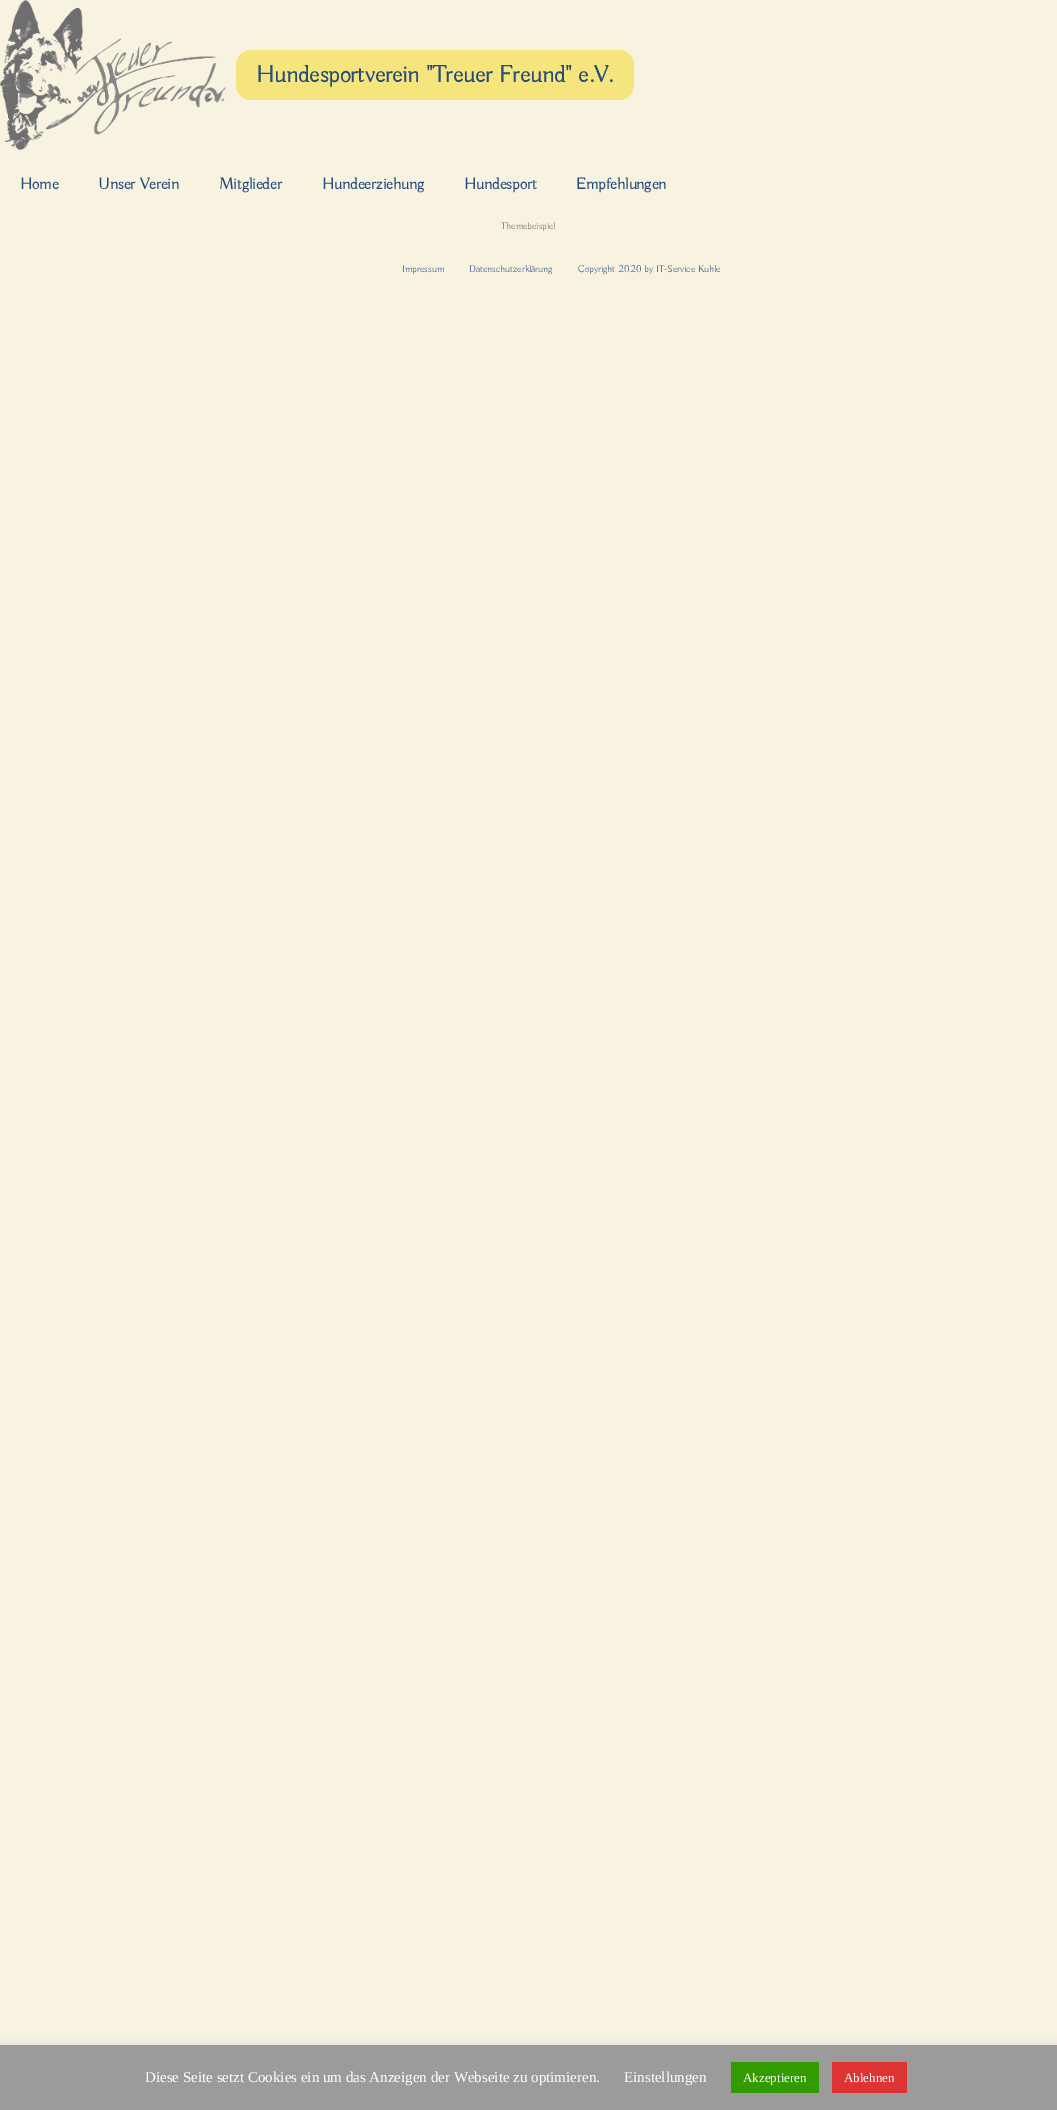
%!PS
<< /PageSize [1057 2110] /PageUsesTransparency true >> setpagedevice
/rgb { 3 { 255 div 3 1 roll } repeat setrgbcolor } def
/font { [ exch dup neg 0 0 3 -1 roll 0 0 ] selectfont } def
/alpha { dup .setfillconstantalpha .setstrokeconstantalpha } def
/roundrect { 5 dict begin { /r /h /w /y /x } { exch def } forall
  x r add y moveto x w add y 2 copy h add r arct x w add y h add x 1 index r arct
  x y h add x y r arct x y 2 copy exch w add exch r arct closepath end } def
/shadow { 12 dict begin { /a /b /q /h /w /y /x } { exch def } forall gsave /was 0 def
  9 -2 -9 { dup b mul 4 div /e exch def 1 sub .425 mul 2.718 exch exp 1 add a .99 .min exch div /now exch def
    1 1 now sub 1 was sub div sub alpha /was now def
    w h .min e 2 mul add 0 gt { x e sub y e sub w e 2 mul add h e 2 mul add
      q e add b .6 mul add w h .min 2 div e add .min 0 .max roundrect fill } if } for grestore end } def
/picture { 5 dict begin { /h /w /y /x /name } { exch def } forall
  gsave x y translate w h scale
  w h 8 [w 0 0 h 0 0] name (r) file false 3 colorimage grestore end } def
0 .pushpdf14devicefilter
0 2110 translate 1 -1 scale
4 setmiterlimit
248 243 225 rgb
0 0 1057 2110 rectfill
(img/1.rgb) 0 0 226 150 picture
246 229 125 rgb
236 50 398 50 15 roundrect fill
172 171 171 rgb
0 2044 1057 65 0 5 0.3 shadow
[
  [0 2045 1057 65 155 155 155]
  [731 2062 88 31 49 155 0]
  [832 2062 75 31 221 51 51]
] { aload pop rgb rectfill } forall
/Buda-Bold 24 font
35 76 123 rgb
256 82 moveto (Hundesportverein "Treuer Freund" e.V.) show
/Buda-Bold 16 font
[
  [(Home) 20 189]
  [(Unser Verein) 98 189]
  [(Mitglieder) 219 189]
  [(Hundeerziehung) 322 189]
  [(Hundesport) 464 189]
  [(Empfehlungen) 576 189]
] { aload pop moveto show } forall
/Buda-Light 10 font
102 102 102 rgb
501 229 moveto (Themebeispiel) show
35 76 123 rgb
[
  [(Impressum) 402 272]
  [(Datenschutzerklärung) 469 272]
  [(Copyright 2020 by IT-Service Kuhle) 578 272]
] { aload pop moveto show } forall
/LiberationSerif-Regular 15 font
255 255 255 rgb
145 2082 moveto (Diese Seite setzt Cookies ein um das Anzeigen der Webseite zu optimieren.) show
624 2082 moveto (Einstellungen) show
/LiberationSerif-Regular 13 font
743 2082 moveto (Akzeptieren) show
844 2082 moveto (Ablehnen) show
.poppdf14devicefilter showpage
